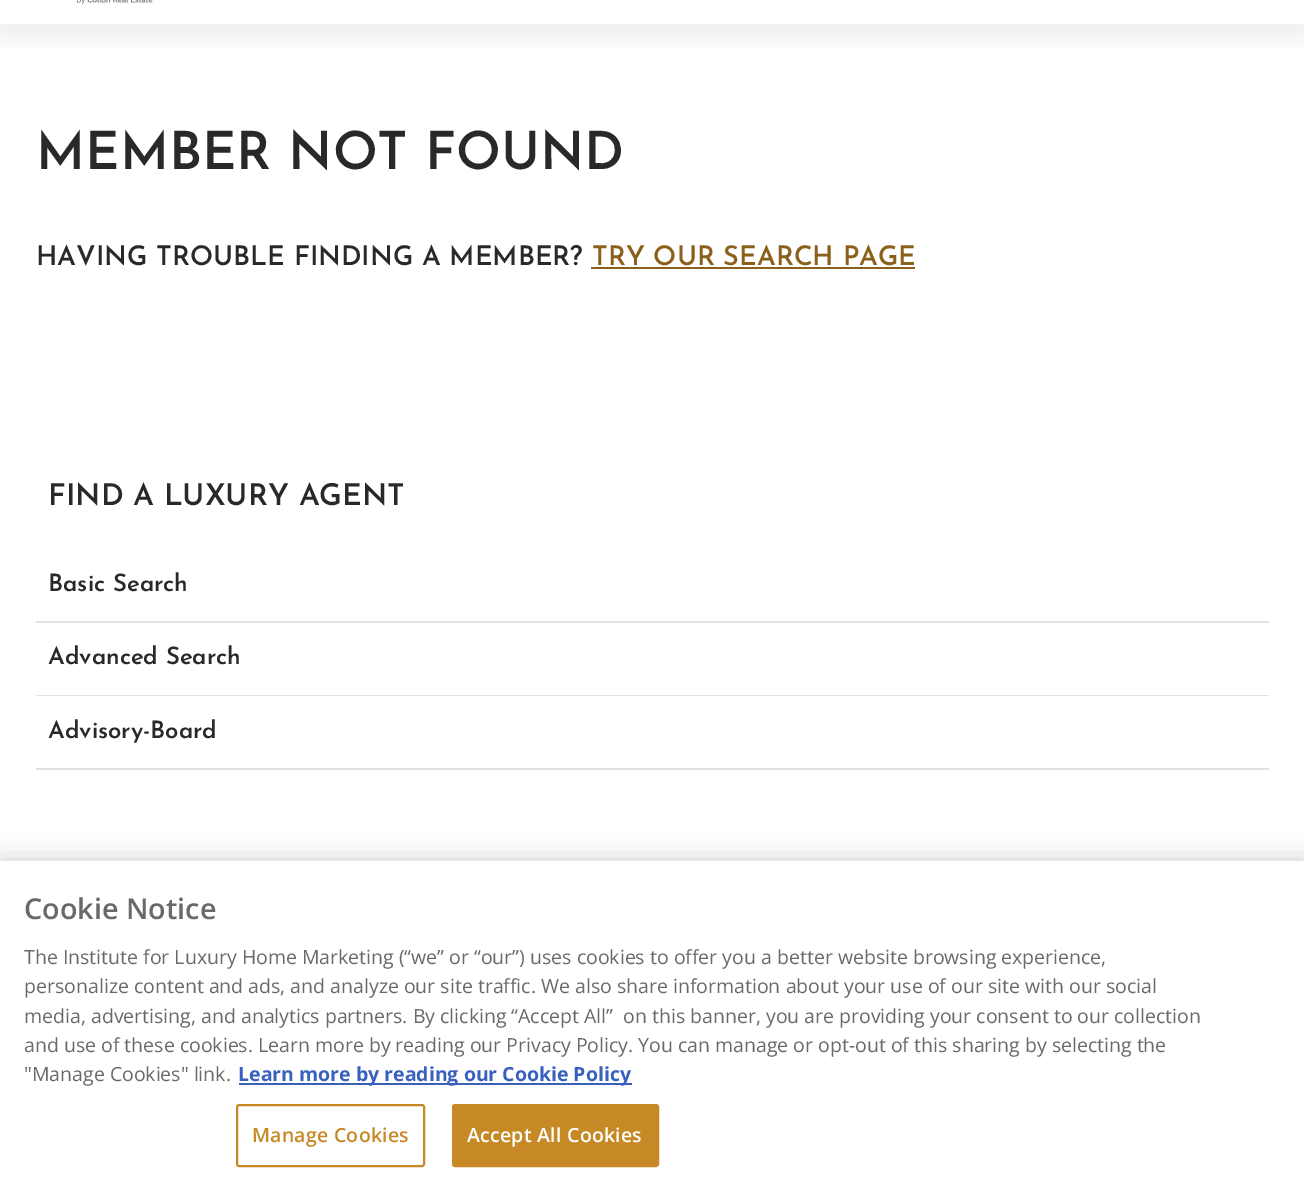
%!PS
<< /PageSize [1304 1191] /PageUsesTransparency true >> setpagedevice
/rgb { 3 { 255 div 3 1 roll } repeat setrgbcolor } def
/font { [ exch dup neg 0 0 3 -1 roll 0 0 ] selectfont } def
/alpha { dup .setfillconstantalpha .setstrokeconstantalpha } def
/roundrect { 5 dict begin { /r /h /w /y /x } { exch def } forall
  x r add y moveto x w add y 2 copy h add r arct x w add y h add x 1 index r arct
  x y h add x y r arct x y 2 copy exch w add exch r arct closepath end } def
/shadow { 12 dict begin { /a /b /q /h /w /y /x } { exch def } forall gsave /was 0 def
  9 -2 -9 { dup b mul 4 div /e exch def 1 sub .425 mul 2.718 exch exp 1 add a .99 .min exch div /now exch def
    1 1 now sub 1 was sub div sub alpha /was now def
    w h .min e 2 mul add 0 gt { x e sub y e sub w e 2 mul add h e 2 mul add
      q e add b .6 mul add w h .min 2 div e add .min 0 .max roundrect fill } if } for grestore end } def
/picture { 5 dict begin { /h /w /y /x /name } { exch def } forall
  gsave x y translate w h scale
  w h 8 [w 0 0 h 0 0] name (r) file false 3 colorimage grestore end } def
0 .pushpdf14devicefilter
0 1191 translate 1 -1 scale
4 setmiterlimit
255 255 255 rgb
0 0 1304 1191 rectfill
gsave
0 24 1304 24 rectclip
0 0 0 rgb
0 -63 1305 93 0 21 0.1 shadow
grestore
(img/1.rgb) 76 0 77 5 picture
[
  [591 267 324 2 139 96 27]
  [36 621 1233 2 229 225 221]
  [36 695 1233 1 229 225 221]
  [36 768 1233 2 229 225 221]
] { aload pop rgb rectfill } forall
0 0 0 rgb
0 861 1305 330 0 13.5 0.2 shadow
255 255 255 rgb
0 861 1304 330 rectfill
56 96 190 rgb
239 1083 393 2 rectfill
199 137 38 rgb
2 setlinewidth
237 1105 187 61 2 roundrect stroke
453 1105 205 61 2 roundrect gsave fill grestore
stroke
/JosefinSans-SemiBold 52.5 font
41 41 41 rgb
36 169 moveto (MEMBER NOT FOUND) show
/JosefinSans-SemiBold 27 font
36 265 moveto (HAVING TROUBLE FINDING A MEMBER?) show
139 96 27 rgb
592 265 moveto (TRY OUR SEARCH PAGE) show
/JosefinSans-SemiBold 30 font
41 41 41 rgb
48 505 moveto (FIND A LUXURY AGENT) show
/JosefinSans-SemiBold 24 font
[
  [(Basic Search) 48 591]
  [(Advanced Search) 48 664]
  [(Advisory-Board) 48 738]
] { aload pop moveto show } forall
/OpenSans-SemiBold 28.75 font
105 105 105 rgb
24 919 moveto (Cookie Notice) show
/OpenSans-Regular 19.5 font
[
  [(The Institute for Luxury Home Marketing \(“we” or “our”\) uses cookies to offer you a better website browsing experience,) 24 964]
  [(personalize content and ads, and analyze our site traffic. We also share information about your use of our site with our social) 24 993]
  [(media, advertising, and analytics partners. By clicking “Accept All”  on this banner, you are providing your consent to our collection) 24 1023]
  [(and use of these cookies. Learn more by reading our Privacy Policy. You can manage or opt-out of this sharing by selecting the) 24 1052]
  [("Manage Cookies" link.) 24 1081]
] { aload pop moveto show } forall
/OpenSans-Bold 19.5 font
56 96 190 rgb
238 1081 moveto (Learn more by reading our Cookie Policy) show
/OpenSans-SemiBold 19.5 font
199 137 38 rgb
252 1142 moveto 0.25 0 (Manage Cookies) ashow
255 255 255 rgb
467 1142 moveto 0.25 0 (Accept All Cookies) ashow
.poppdf14devicefilter showpage
